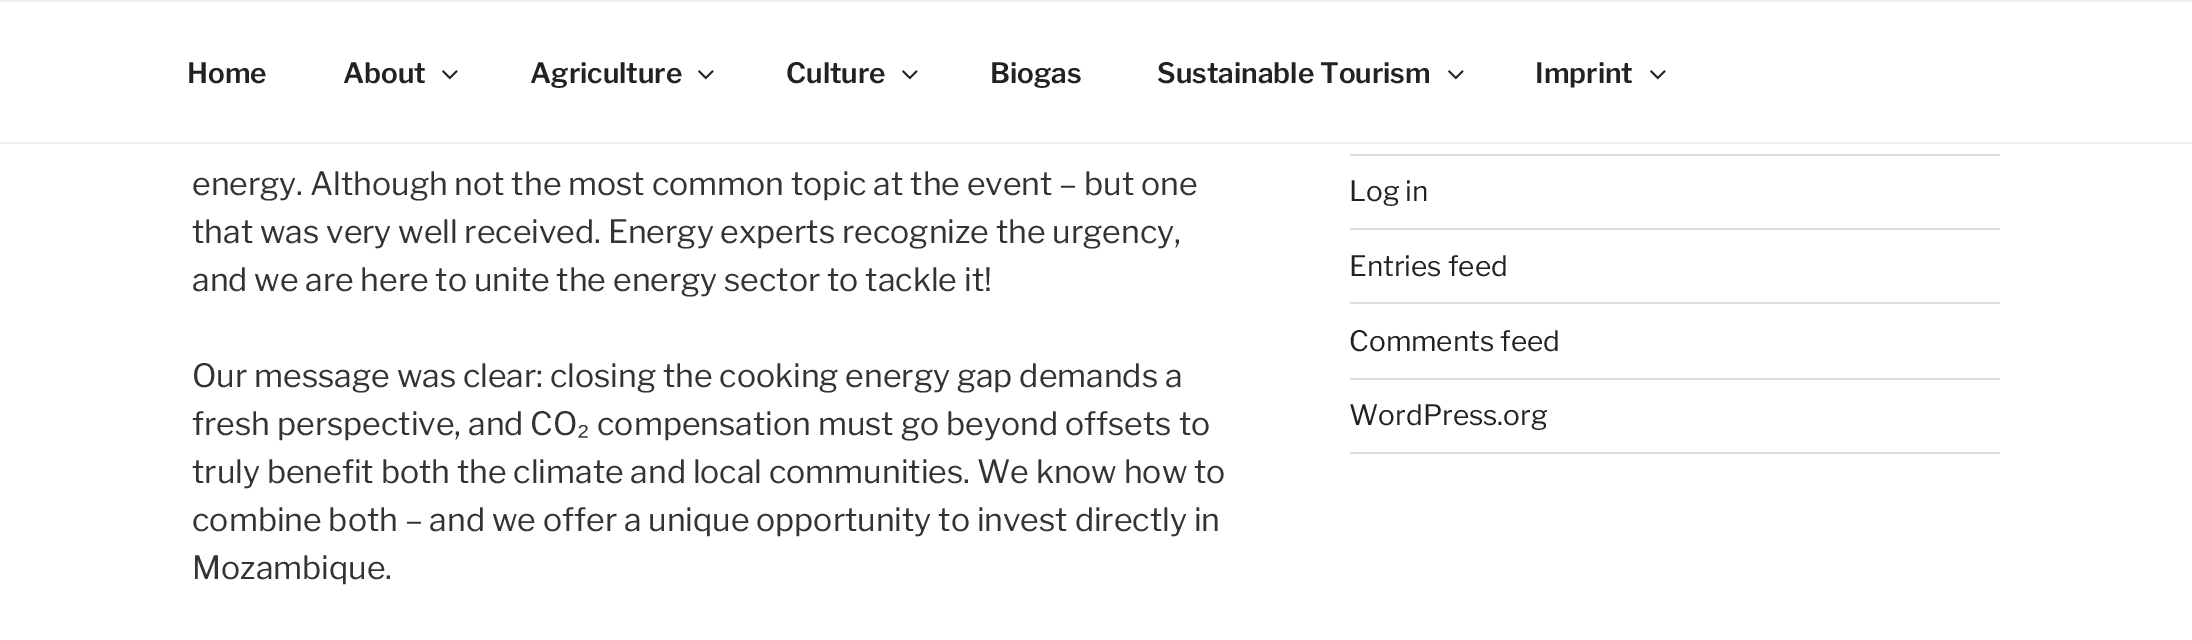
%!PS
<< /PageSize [2192 640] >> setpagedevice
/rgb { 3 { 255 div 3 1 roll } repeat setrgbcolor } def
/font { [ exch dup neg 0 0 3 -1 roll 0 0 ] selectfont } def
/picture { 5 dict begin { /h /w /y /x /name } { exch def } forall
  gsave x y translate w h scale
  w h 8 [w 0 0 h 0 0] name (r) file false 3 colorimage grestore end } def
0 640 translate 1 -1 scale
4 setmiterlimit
255 255 255 rgb
0 0 2192 640 rectfill
238 238 238 rgb
0 0 2192 2 rectfill
0 142 2192 2 rectfill
(img/1.rgb) 442 70 16 10 picture
(img/1.rgb) 698 70 16 10 picture
(img/1.rgb) 902 70 16 10 picture
(img/1.rgb) 1448 70 16 10 picture
(img/1.rgb) 1650 70 16 10 picture
[
  [1350 154 650 2 221 221 221]
  [1350 228 650 2 221 221 221]
  [1350 302 650 2 221 221 221]
  [1350 378 650 2 221 221 221]
  [1350 452 650 2 221 221 221]
] { aload pop rgb rectfill } forall
/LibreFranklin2-Thin 28 font
34 34 34 rgb
[
  [(Home) 187 83]
  [(About) 343 83]
  [(Agriculture) 530 83]
  [(Culture) 786 83]
  [(Biogas) 990 83]
  [(Sustainable Tourism) 1157 83]
  [(Imprint) 1535 83]
] { aload pop moveto show } forall
/LibreFranklin-Thin 32 font
51 51 51 rgb
[
  [(energy. Although not the most common topic at the event – but one) 192 195]
  [(that was very well received. Energy experts recognize the urgency,) 192 243]
  [(and we are here to unite the energy sector to tackle it!) 192 291]
  [(Our message was clear: closing the cooking energy gap demands a) 192 387]
  [(fresh perspective, and CO) 192 435]
] { aload pop moveto show } forall
/LiberationSans-Regular 32 font
577 435 moveto (₂) show
/LibreFranklin-Thin 32 font
[
  [(compensation must go beyond offsets to) 597 435]
  [(truly benefit both the climate and local communities. We know how to) 192 483]
  [(combine both – and we offer a unique opportunity to invest directly in) 192 531]
  [(Mozambique.) 192 579]
] { aload pop moveto show } forall
/LibreFranklin-Thin 28 font
34 34 34 rgb
[
  [(Log in) 1349 201]
  [(Entries feed) 1349 276]
  [(Comments feed) 1349 351]
  [(WordPress.org) 1349 425]
] { aload pop moveto show } forall
showpage
